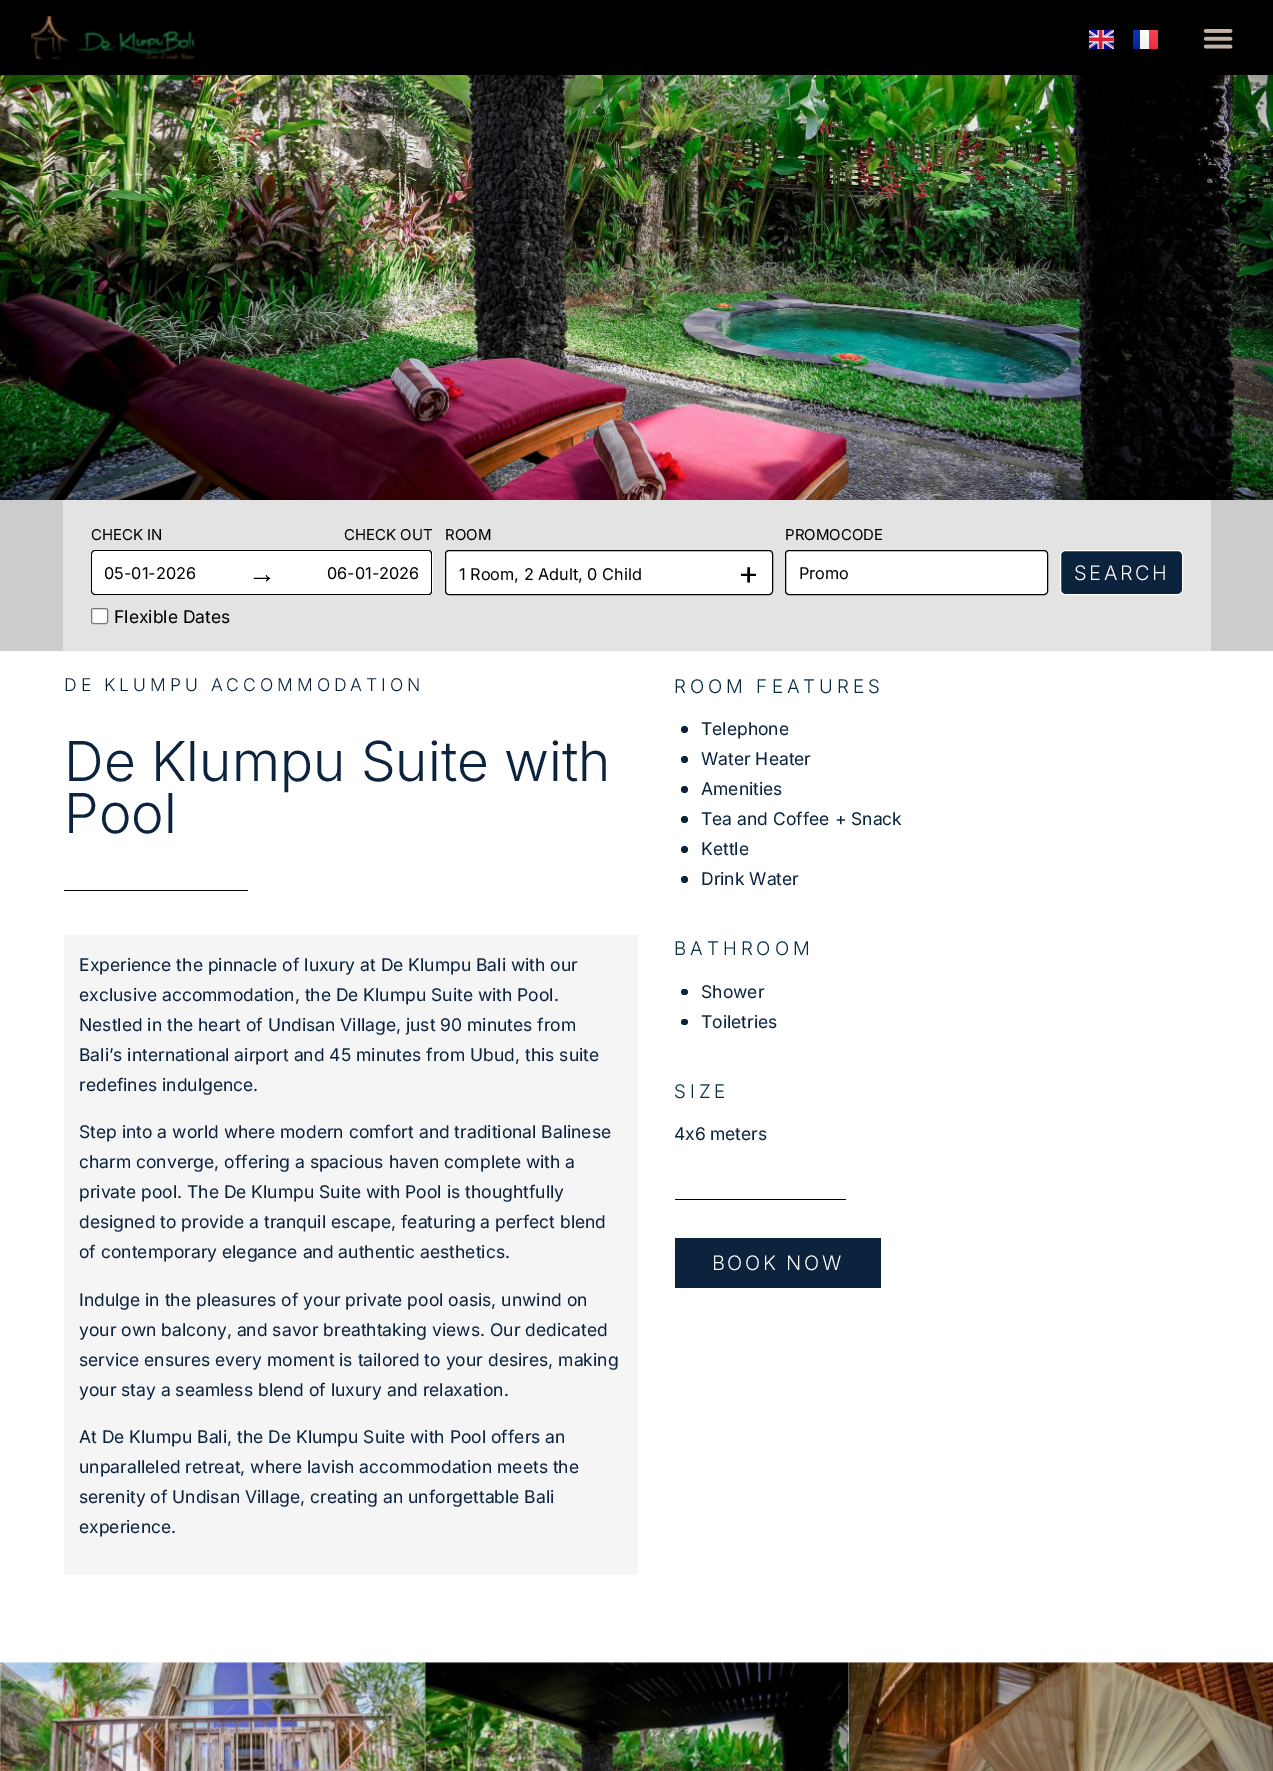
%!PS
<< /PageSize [1273 1771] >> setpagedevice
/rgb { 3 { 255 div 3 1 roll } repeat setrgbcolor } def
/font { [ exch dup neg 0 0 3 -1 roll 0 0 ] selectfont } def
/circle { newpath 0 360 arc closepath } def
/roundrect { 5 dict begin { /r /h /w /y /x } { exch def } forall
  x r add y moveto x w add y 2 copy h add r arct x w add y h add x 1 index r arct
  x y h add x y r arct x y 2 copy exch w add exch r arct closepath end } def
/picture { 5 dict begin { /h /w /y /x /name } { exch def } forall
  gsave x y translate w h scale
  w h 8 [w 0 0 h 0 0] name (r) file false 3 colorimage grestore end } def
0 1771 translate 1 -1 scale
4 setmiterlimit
255 255 255 rgb
0 0 1273 1771 rectfill
0 0 0 rgb
0 0 1273 75 rectfill
(img/1.rgb) 31 16 164 44 picture
(img/2.rgb) 1089 30 25 19 picture
gsave 1133 30 moveto 1140 30 lineto 1140 49 lineto 1133 49 lineto closepath clip newpath
<< /ShadingType 2 /ColorSpace /DeviceRGB /Coords [1136 30 1136 49] /Extend [true true] /Function << /FunctionType 2 /Domain [0 1] /C0 [0.063 0.208 0.733] /C1 [0.016 0.137 0.588] /N 1 >> >> shfill grestore
gsave 1140 30 moveto 1149 30 lineto 1149 49 lineto 1140 49 lineto closepath clip newpath
<< /ShadingType 2 /ColorSpace /DeviceRGB /Coords [1144 30 1144 49] /Extend [true true] /Function << /FunctionType 2 /Domain [0 1] /C0 [1 1 1] /C1 [0.941 0.941 0.941] /N 1 >> >> shfill grestore
gsave 1149 30 moveto 1158 30 lineto 1158 49 lineto 1149 49 lineto closepath clip newpath
<< /ShadingType 2 /ColorSpace /DeviceRGB /Coords [1151 30 1151 49] /Extend [true true] /Function << /FunctionType 2 /Domain [0 1] /C0 [0.957 0.275 0.325] /C1 [0.933 0.165 0.224] /N 1 >> >> shfill grestore
(img/3.rgb) 1203 29 30 20 picture
(img/4.rgb) 0 75 1273 425 picture
204 204 204 rgb
0 500 1273 151 rectfill
227 227 227 rgb
63 500 1148 151 rectfill
255 255 255 rgb
95 550 moveto 316 550 lineto 316 595 lineto 95 595 lineto 93 595 91 593 91 591 curveto 91 554 lineto 91 552 93 550 95 550 curveto closepath fill
0 0 0 rgb
95 550 moveto 316 550 lineto 316 595 lineto 95 595 lineto 93 595 91 593 91 591 curveto 91 554 lineto 91 552 93 550 95 550 curveto closepath 95 551 moveto 316 551 lineto 316 594 lineto 95 594 lineto 94 594 92 593 92 591 curveto 92 554 lineto 92 552 94 551 95 551 curveto closepath eofill
255 255 255 rgb
315 550 moveto 429 550 lineto 431 550 433 552 433 554 curveto 433 591 lineto 433 593 431 595 429 595 curveto 315 595 lineto closepath fill
0 0 0 rgb
315 550 moveto 429 550 lineto 431 550 432 552 432 554 curveto 432 591 lineto 432 593 431 595 429 595 curveto 315 595 lineto closepath 315 551 moveto 429 551 lineto 430 551 431 552 431 554 curveto 431 591 lineto 431 593 430 594 429 594 curveto 315 594 lineto closepath eofill
255 255 255 rgb
91.5 608.5 16 15 2 roundrect gsave fill grestore
118 118 118 rgb
stroke
255 255 255 rgb
445.5 550.5 327 44 3.5 roundrect gsave fill grestore
0 0 0 rgb
stroke
255 255 255 rgb
785.5 550.5 262 44 3.5 roundrect gsave fill grestore
0 0 0 rgb
stroke
12 35 62 rgb
1060.5 550.5 122 44 4.5 roundrect gsave fill grestore
255 255 255 rgb
stroke
0 0 0 rgb
64 890 184 1 rectfill
245 245 245 rgb
64 935 574 640 rectfill
12 35 62 rgb
684.5 729.5 3.5 circle fill
684.5 759.5 3.5 circle fill
684.5 789.5 3.5 circle fill
684.5 819.5 3.5 circle fill
684.5 849.5 3.5 circle fill
684.5 879.5 3.5 circle fill
681 989 7 6 3 roundrect fill
681 1019 7 6 3 roundrect fill
0 0 0 rgb
675 1199 171 1 rectfill
12 35 62 rgb
675 1238 206 50 rectfill
(img/5.rgb) 0 1662 425 109 picture
(img/6.rgb) 424 1662 426 109 picture
(img/7.rgb) 849 1662 424 109 picture
/Inter-Regular 15 font
0 0 0 rgb
91 540 moveto (CHECK IN) show
/Inter-Regular 16.25 font
104 579 moveto (05-01-2026) show
/LiberationSerif-Regular 28 font
248 583 moveto (→) show
/Inter-Regular 15 font
344 540 moveto (CHECK OUT) show
/Inter-Regular 16.25 font
327 579 moveto (06-01-2026) show
/Inter-Regular 17.5 font
114 623 moveto (Flexible Dates) show
/Inter-Regular 15 font
445 540 moveto (ROOM) show
/Inter-Regular 16.25 font
459 580 moveto (1 Room, 2 Adult, 0 Child) show
/Inter-Regular 32 font
738 584 moveto (+) show
/Inter-Regular 15 font
785 540 moveto (PROMOCODE) show
/Inter-Regular 16.25 font
799 579 moveto (Promo) show
/Inter-Light 20 font
255 255 255 rgb
1074 580 moveto 2.5 0 (SEARCH) ashow
/Inter-Light 17.5 font
12 35 62 rgb
64 691 moveto 4 0 (DE KLUMPU ACCOMMODATION) ashow
/Inter-Light 55 font
64 781 moveto (De Klumpu Suite with) show
64 833 moveto (Pool) show
/Inter-Regular 17.5 font
[
  [(Experience the pinnacle of luxury at De Klumpu Bali with our) 79 971]
  [(exclusive accommodation, the De Klumpu Suite with Pool.) 79 1001]
  [(Nestled in the heart of Undisan Village, just 90 minutes from) 79 1031]
  [(Bali’s international airport and 45 minutes from Ubud, this suite) 79 1061]
  [(redefines indulgence.) 79 1091]
  [(Step into a world where modern comfort and traditional Balinese) 79 1138]
  [(charm converge, offering a spacious haven complete with a) 79 1168]
  [(private pool. The De Klumpu Suite with Pool is thoughtfully) 79 1198]
  [(designed to provide a tranquil escape, featuring a perfect blend) 79 1228]
  [(of contemporary elegance and authentic aesthetics.) 79 1258]
  [(Indulge in the pleasures of your private pool oasis, unwind on) 79 1306]
  [(your own balcony, and savor breathtaking views. Our dedicated) 79 1336]
  [(service ensures every moment is tailored to your desires, making) 79 1366]
  [(your stay a seamless blend of luxury and relaxation.) 79 1396]
  [(At De Klumpu Bali, the De Klumpu Suite with Pool offers an) 79 1443]
  [(unparalleled retreat, where lavish accommodation meets the) 79 1473]
  [(serenity of Undisan Village, creating an unforgettable Bali) 79 1503]
  [(experience.) 79 1533]
] { aload pop moveto show } forall
/Inter-Light 18.75 font
8 45 65 rgb
674 693 moveto 4 0 (ROOM FEATURES) ashow
/Inter-Regular 17.5 font
12 35 62 rgb
[
  [(Telephone) 701 735]
  [(Water Heater) 701 765]
  [(Amenities) 701 795]
  [(Tea and Coffee + Snack) 701 825]
  [(Kettle) 701 855]
  [(Drink Water) 701 885]
] { aload pop moveto show } forall
/Inter-Light 18.75 font
8 45 65 rgb
674 955 moveto 4 0 (BATHROOM) ashow
/Inter-Regular 17.5 font
12 35 62 rgb
701 998 moveto (Shower) show
701 1028 moveto (Toiletries) show
/Inter-Light 18.75 font
8 45 65 rgb
674 1098 moveto 4 0 (SIZE) ashow
/Inter-Regular 17.5 font
12 35 62 rgb
674 1140 moveto -1 0 32 (4x6 meters) widthshow
/Inter-Light 20 font
255 255 255 rgb
712 1270 moveto 2.5 0 (BOOK NOW) ashow
showpage
